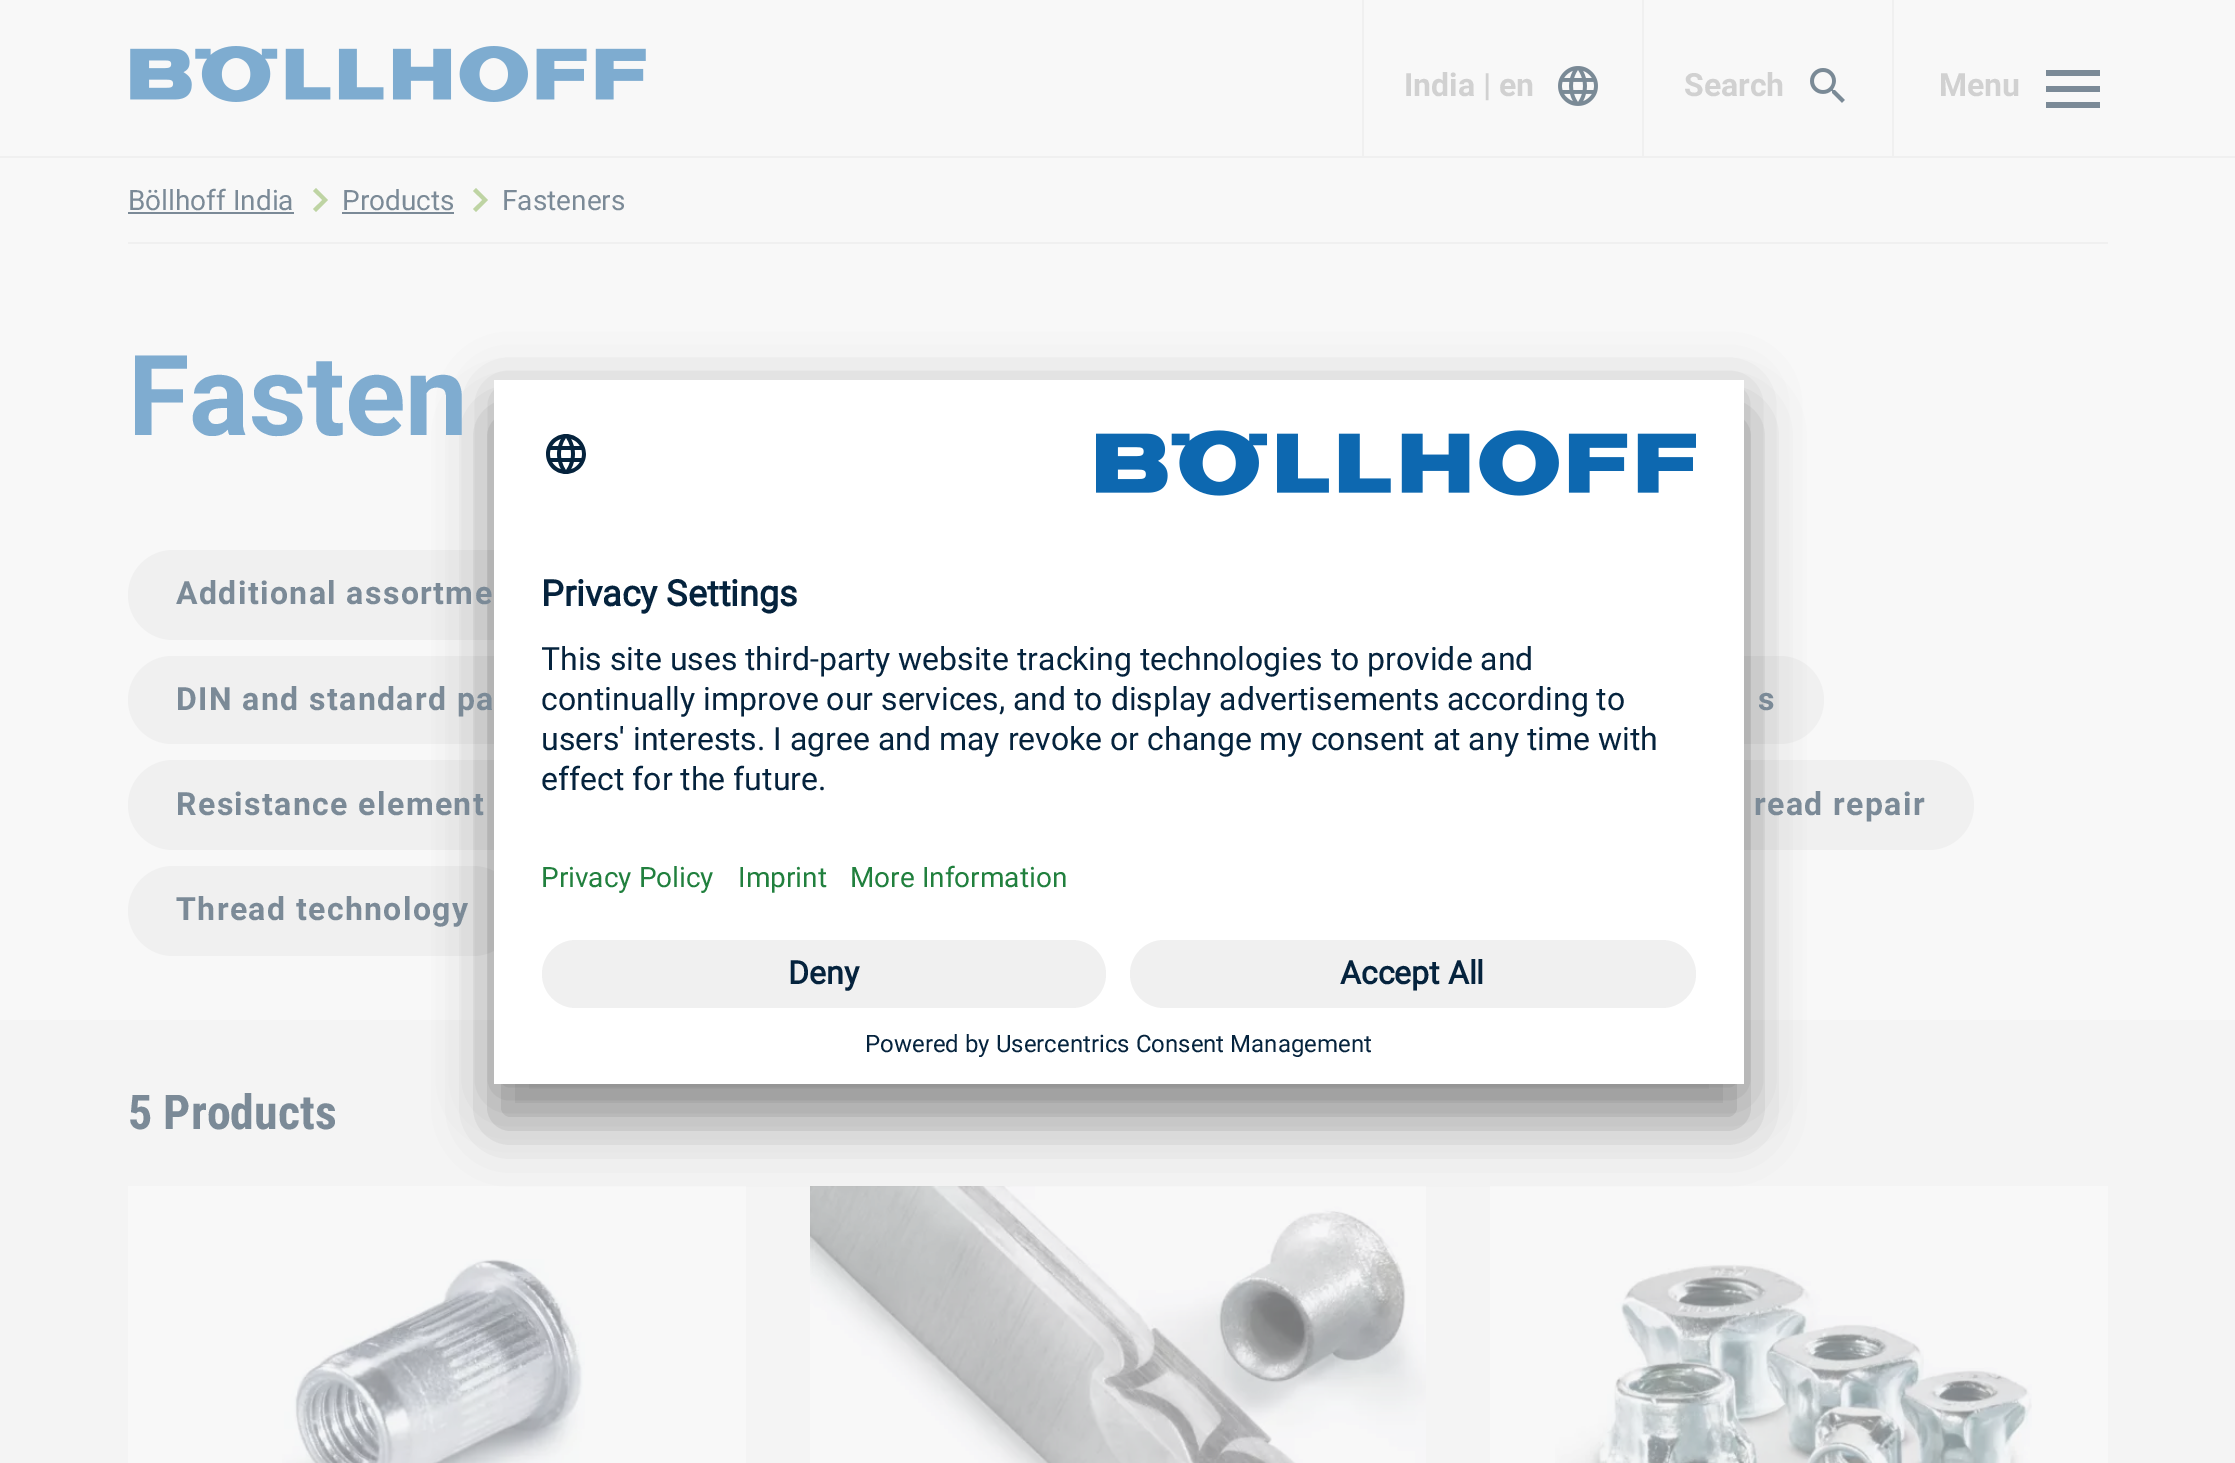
%!PS
<< /PageSize [2235 1463] /PageUsesTransparency true >> setpagedevice
/rgb { 3 { 255 div 3 1 roll } repeat setrgbcolor } def
/font { [ exch dup neg 0 0 3 -1 roll 0 0 ] selectfont } def
/alpha { dup .setfillconstantalpha .setstrokeconstantalpha } def
/roundrect { 5 dict begin { /r /h /w /y /x } { exch def } forall
  x r add y moveto x w add y 2 copy h add r arct x w add y h add x 1 index r arct
  x y h add x y r arct x y 2 copy exch w add exch r arct closepath end } def
/shadow { 12 dict begin { /a /b /q /h /w /y /x } { exch def } forall gsave /was 0 def
  9 -2 -9 { dup b mul 4 div /e exch def 1 sub .425 mul 2.718 exch exp 1 add a .99 .min exch div /now exch def
    1 1 now sub 1 was sub div sub alpha /was now def
    w h .min e 2 mul add 0 gt { x e sub y e sub w e 2 mul add h e 2 mul add
      q e add b .6 mul add w h .min 2 div e add .min 0 .max roundrect fill } if } for grestore end } def
/picture { 5 dict begin { /h /w /y /x /name } { exch def } forall
  gsave x y translate w h scale
  w h 8 [w 0 0 h 0 0] name (r) file false 3 colorimage grestore end } def
0 .pushpdf14devicefilter
0 1463 translate 1 -1 scale
4 setmiterlimit
248 248 248 rgb
0 0 2235 1463 rectfill
240 240 240 rgb
0 156 2235 2 rectfill
(img/1.rgb) 130 46 516 56 picture
1362 0 2 156 rectfill
(img/2.rgb) 1558 66 40 40 picture
1642 0 2 156 rectfill
(img/3.rgb) 1810 68 35 35 picture
[
  [1892 0 2 156 240 240 240]
  [2046 70 54 6 123 138 151]
  [2046 86 54 6 123 138 151]
  [2046 102 54 6 123 138 151]
  [128 242 1980 2 240 240 240]
  [128 212 166 2 123 138 151]
] { aload pop rgb rectfill } forall
190 212 163 rgb
316 188 moveto 328 200 lineto 316 212 lineto 313 209 lineto 322.5 200 lineto 313 191 lineto closepath fill
123 138 151 rgb
342 212 112 2 rectfill
190 212 163 rgb
476 188 moveto 488 200 lineto 476 212 lineto 473 209 lineto 482.5 200 lineto 473 191 lineto closepath fill
240 240 240 rgb
128 550 462 90 45 roundrect fill
128 656 458 88 44 roundrect fill
1368 656 456 88 44 roundrect fill
128 760 536 90 45 roundrect fill
1666 760 308 90 45 roundrect fill
128 866 390 90 45 roundrect fill
244 244 244 rgb
0 1020 2235 443 rectfill
248 248 248 rgb
128 1186 618 277 rectfill
(img/4.rgb) 282 1259 303 204 picture
(img/5.rgb) 810 1186 616 277 picture
1490 1186 618 277 rectfill
(img/6.rgb) 1555 1264 477 199 picture
0 0 0 rgb
494 420 1250 704 0 28 0.3 shadow
494 390 1250 704 0 26 0.22 shadow
255 255 255 rgb
494 380 1250 704 rectfill
(img/7.rgb) 546 434 40 40 picture
(img/8.rgb) 1096 430 600 66 picture
240 240 240 rgb
542 940 564 68 34 roundrect fill
1130 940 566 68 34 roundrect fill
/Roboto-Bold 32 font
209 209 209 rgb
[
  [(India | en) 1404 96]
  [(Search) 1684 96]
  [(Menu) 1939 96]
] { aload pop moveto show } forall
/Roboto-Regular 28 font
123 138 151 rgb
[
  [(Böllhoff India) 128 210]
  [(Products) 342 210]
  [(Fasteners) 502 210]
] { aload pop moveto show } forall
/Roboto-Bold 112 font
127 172 208 rgb
128 435 moveto (Fasten) show
/Roboto-Bold 32 font
123 138 151 rgb
176 604 moveto 1.4 0 (Additional assortme) ashow
176 710 moveto 1.4 0 (DIN and standard pa) ashow
1758 710 moveto 1.4 0 (s) ashow
176 815 moveto 1.4 0 (Resistance element) ashow
1754 815 moveto 1.4 0 (read repair) ashow
176 920 moveto 1.4 0 (Thread technology) ashow
/RobotoCondensed-Bold 48 font
128 1129 moveto (5 Products) show
/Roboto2-Bold 36 font
5 35 61 rgb
541 606 moveto (Privacy Settings) show
gsave
542 632 1154 176 rectclip
/Roboto-Regular 32 font
541 670 moveto (This site uses third-party website tracking technologies to provide and) show
grestore
/Roboto-Regular 32 font
[
  [(continually improve our services, and to display advertisements according to) 541 710]
  [(users' interests. I agree and may revoke or change my consent at any time with) 541 750]
  [(effect for the future.) 541 790]
] { aload pop moveto show } forall
/Roboto-Regular 28 font
33 128 62 rgb
[
  [(Privacy Policy) 541 887]
  [(Imprint) 738 887]
  [(More Information) 850 887]
] { aload pop moveto show } forall
/Roboto2-Bold 32 font
5 35 61 rgb
788 984 moveto (Deny) show
1340 984 moveto (Accept All) show
/Roboto-Regular 24 font
865 1052 moveto (Powered by Usercentrics Consent Management) show
.poppdf14devicefilter showpage
